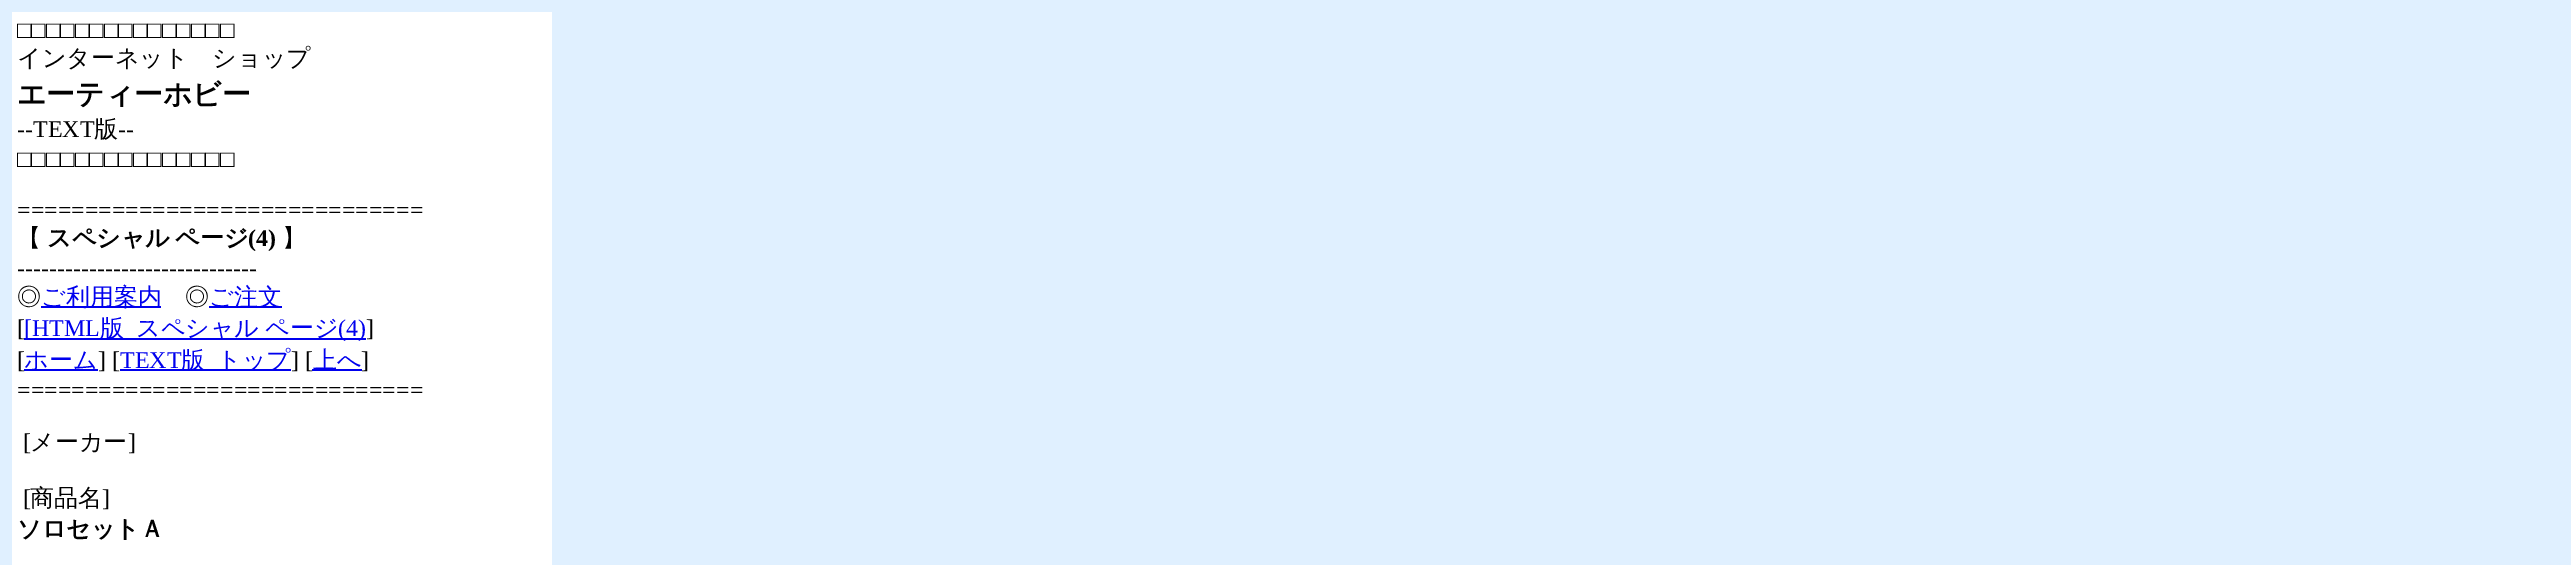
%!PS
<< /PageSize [2571 565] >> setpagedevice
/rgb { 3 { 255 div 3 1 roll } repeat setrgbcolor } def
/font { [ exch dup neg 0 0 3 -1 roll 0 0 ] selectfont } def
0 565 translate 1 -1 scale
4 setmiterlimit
224 240 255 rgb
0 0 2571 565 rectfill
[
  [12 12 540 553 255 255 255]
  [41 306 120 2 0 0 238]
  [209 306 73 2 0 0 238]
  [24 338 342 2 0 0 238]
  [24 369 74 2 0 0 238]
  [120 369 171 2 0 0 238]
  [312 369 50 2 0 0 238]
] { aload pop rgb rectfill } forall
/LiberationSerif-Regular 24 font
0 0 0 rgb
17 38 moveto (□□□□□□□□□□□□□□□) show
/WenQuanYiZenHei-Medium 24 font
17 66 moveto (インターネット　ショップ) show
/WenQuanYiZenHei-Bold 28.75 font
17 104 moveto (エーティーホビー) show
/LiberationSerif-Regular 24 font
17 137 moveto (--TEXT) show
/WenQuanYiZenHei-Medium 24 font
94 137 moveto (版) show
/LiberationSerif-Regular 24 font
[
  [(--) 118 137]
  [(□□□□□□□□□□□□□□□) 17 167]
  [(==============================) 17 218]
] { aload pop moveto show } forall
/WenQuanYiZenHei-Medium 24 font
17 246 moveto (【) show
/WenQuanYiZenHei-Bold 24 font
47 246 moveto (スペシャル) show
175 246 moveto (ページ) show
/LiberationSerif-Bold 24 font
248 246 moveto (\(4\)) show
/WenQuanYiZenHei-Medium 24 font
282 246 moveto (】) show
/LiberationSerif-Regular 24 font
17 276 moveto (------------------------------) show
/WenQuanYiZenHei-Medium 24 font
17 305 moveto (◎) show
0 0 238 rgb
41 305 moveto (ご利用案内) show
0 0 0 rgb
185 305 moveto (◎) show
0 0 238 rgb
209 305 moveto (ご注文) show
/LiberationSerif-Regular 24 font
0 0 0 rgb
17 336 moveto ([) show
0 0 238 rgb
24 336 moveto ([HTML) show
/WenQuanYiZenHei-Medium 24 font
[
  [(版) 100 336]
  [(スペシャル) 136 336]
  [(ページ) 265 336]
] { aload pop moveto show } forall
/LiberationSerif-Regular 24 font
338 336 moveto (\(4\)) show
0 0 0 rgb
366 336 moveto (]) show
17 368 moveto ([) show
/WenQuanYiZenHei-Medium 24 font
0 0 238 rgb
24 368 moveto (ホーム) show
/LiberationSerif-Regular 24 font
0 0 0 rgb
98 368 moveto (] [) show
0 0 238 rgb
120 368 moveto (TEXT) show
/WenQuanYiZenHei-Medium 24 font
181 368 moveto (版) show
217 368 moveto (トップ) show
/LiberationSerif-Regular 24 font
0 0 0 rgb
291 368 moveto (] [) show
/WenQuanYiZenHei-Medium 24 font
0 0 238 rgb
313 368 moveto (上へ) show
/LiberationSerif-Regular 24 font
0 0 0 rgb
[
  [(]) 361 368]
  [(==============================) 17 398]
  [([) 23 450]
] { aload pop moveto show } forall
/WenQuanYiZenHei-Medium 24 font
30 450 moveto (メーカー) show
/LiberationSerif-Regular 24 font
128 450 moveto (]) show
23 506 moveto ([) show
/WenQuanYiZenHei-Medium 24 font
30 506 moveto (商品名) show
/LiberationSerif-Regular 24 font
102 506 moveto (]) show
/WenQuanYiZenHei-Bold 24 font
17 537 moveto (ソロセットＡ) show
showpage
